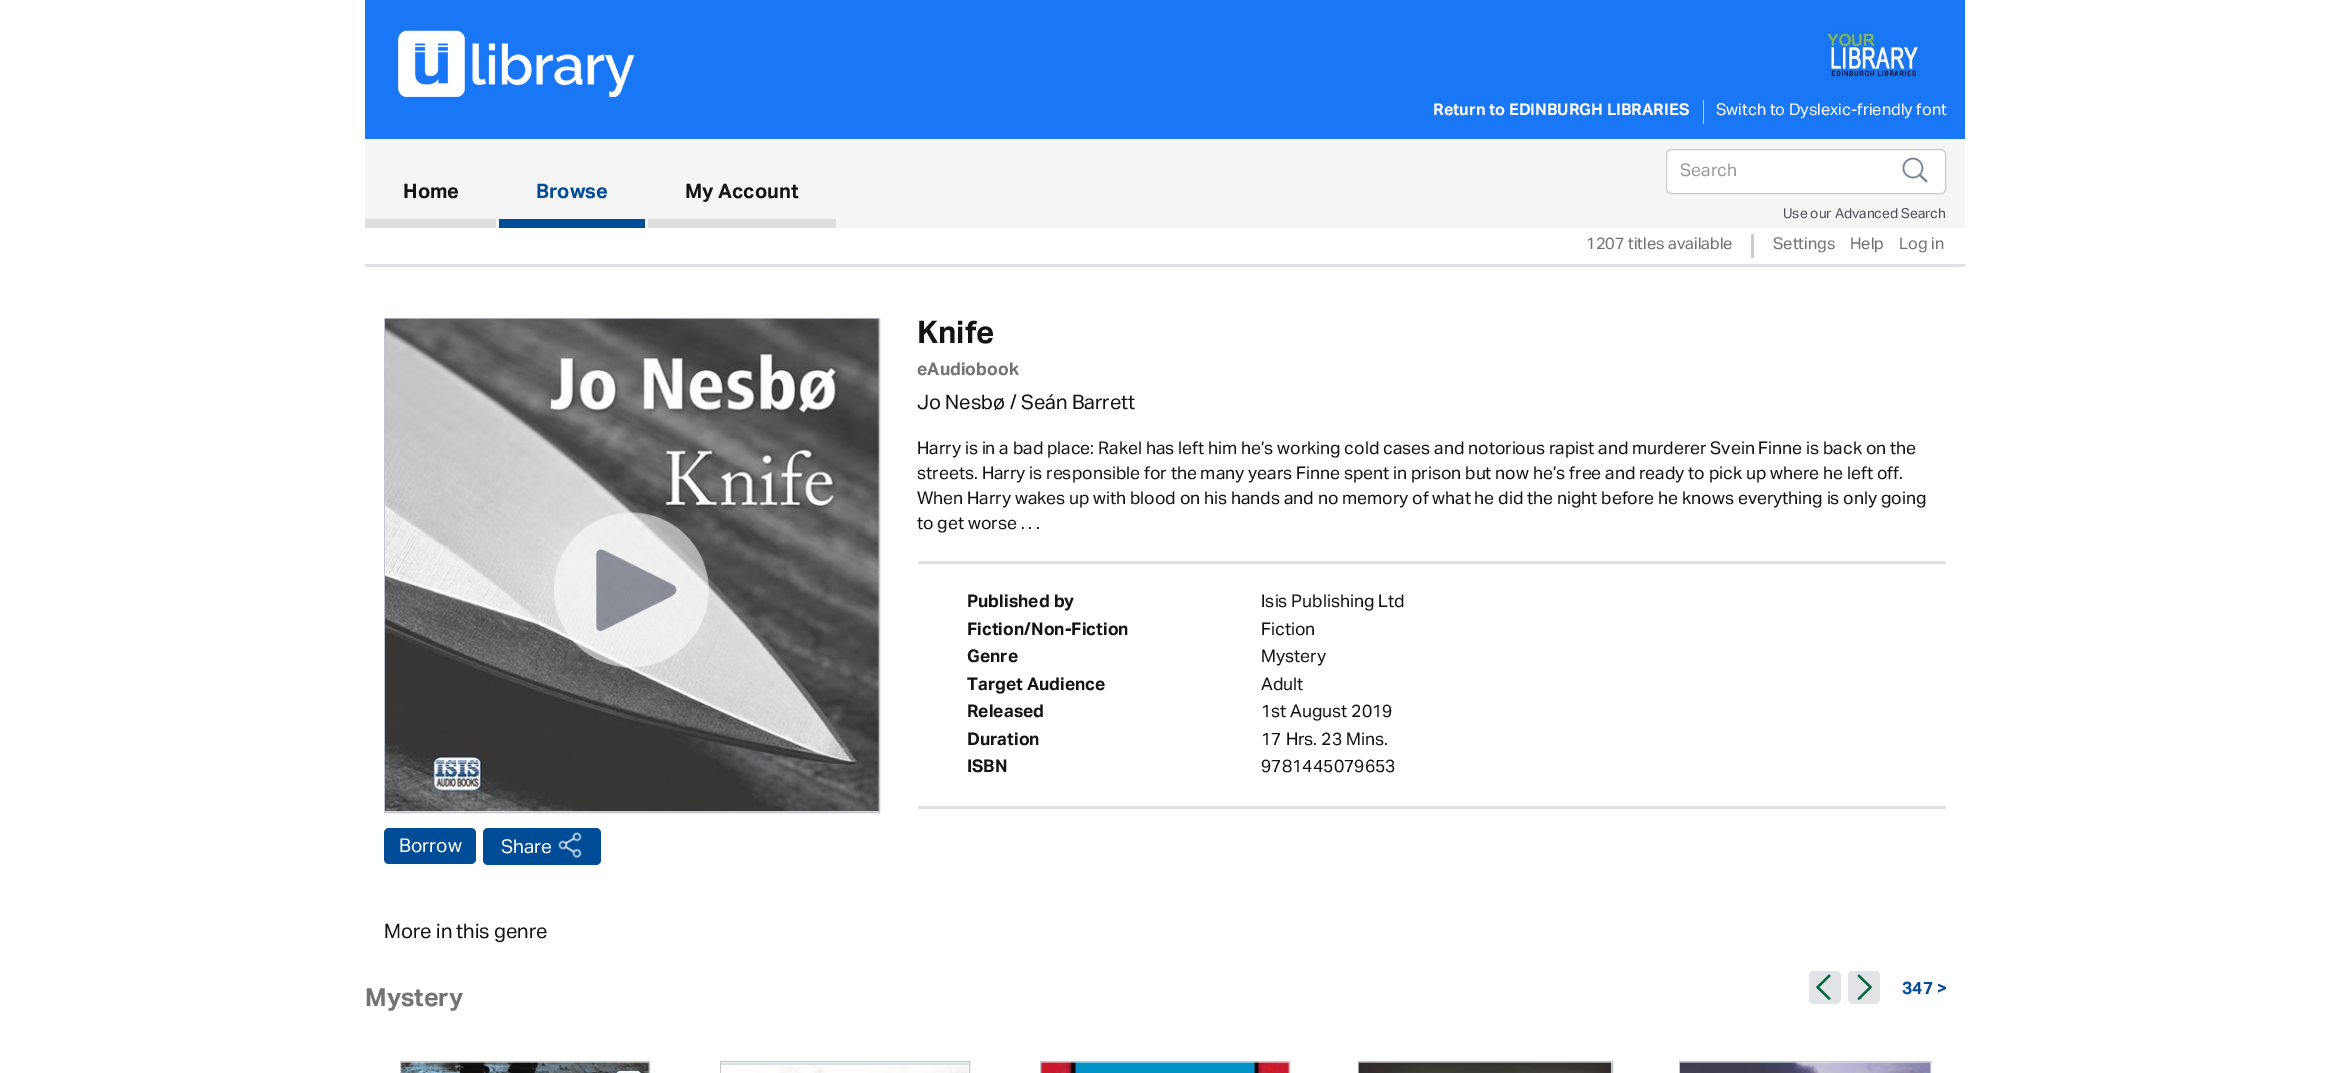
%!PS
<< /PageSize [2329 1073] >> setpagedevice
/rgb { 3 { 255 div 3 1 roll } repeat setrgbcolor } def
/font { [ exch dup neg 0 0 3 -1 roll 0 0 ] selectfont } def
/roundrect { 5 dict begin { /r /h /w /y /x } { exch def } forall
  x r add y moveto x w add y 2 copy h add r arct x w add y h add x 1 index r arct
  x y h add x y r arct x y 2 copy exch w add exch r arct closepath end } def
/picture { 5 dict begin { /h /w /y /x /name } { exch def } forall
  gsave x y translate w h scale
  w h 8 [w 0 0 h 0 0] name (r) file false 3 colorimage grestore end } def
0 1073 translate 1 -1 scale
4 setmiterlimit
255 255 255 rgb
0 0 2329 1073 rectfill
25 119 245 rgb
365 0 1600 139 rectfill
(img/1.rgb) 398 30 237 67 picture
(img/2.rgb) 1824 28 96 51 picture
[
  [1703 100 1 24 204 204 204]
  [365 139 1600 89 245 245 245]
  [365 219 131 9 222 222 222]
  [499 219 146 9 0 76 151]
  [648 219 188 9 222 222 222]
] { aload pop rgb rectfill } forall
255 255 255 rgb
1666.5 149.5 279 44 4.5 roundrect gsave fill grestore
204 204 204 rgb
stroke
(img/3.rgb) 1902 157 26 26 picture
[
  [1751 234 3 24 204 204 204]
  [365 264 1600 3 223 225 231]
  [918 561 1028 3 223 225 231]
  [918 806 1028 3 223 225 231]
] { aload pop rgb rectfill } forall
193 197 206 rgb
384.5 318.5 495 494 rectstroke
(img/4.rgb) 385 318 494 494 picture
(img/5.rgb) 554 512 155 156 picture
0 76 151 rgb
384 828 92 36 5 roundrect fill
483 828 118 37 5 roundrect fill
(img/6.rgb) 558 832 24 26 picture
226 228 231 rgb
1809 971 32 33 5 roundrect fill
(img/7.rgb) 1816 974 15 26 picture
1848 971 32 33 5 roundrect fill
(img/8.rgb) 1857 974 15 26 picture
193 197 206 rgb
400.5 1061.5 249 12 rectstroke
(img/9.rgb) 401 1062 248 11 picture
720.5 1061.5 249 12 rectstroke
(img/10.rgb) 721 1062 248 11 picture
1040.5 1061.5 249 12 rectstroke
(img/11.rgb) 1041 1062 248 11 picture
1358.5 1061.5 254 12 rectstroke
(img/12.rgb) 1358 1062 254 11 picture
1679.5 1061.5 251 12 rectstroke
(img/13.rgb) 1680 1062 250 11 picture
/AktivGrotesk-Bold 16.25 font
255 255 255 rgb
1433 115 moveto (Return to EDINBURGH LIBRARIES) show
/AktivGrotesk-Regular 16.25 font
1716 115 moveto (Switch to Dyslexic-friendly font) show
/AktivGrotesk-Bold 20 font
20 20 20 rgb
403 198 moveto (Home) show
0 76 151 rgb
536 198 moveto (Browse) show
20 20 20 rgb
685 198 moveto (My Account) show
/AktivGrotesk-Regular 17.5 font
153 153 153 rgb
1680 176 moveto (Search) show
/AktivGrotesk-Regular 13.75 font
74 79 93 rgb
1783 218 moveto (Use our Advanced Search) show
/AktivGrotesk-Regular 16.25 font
115 115 115 rgb
[
  [(1207 titles available) 1586 249]
  [(Settings) 1773 249]
  [(Help) 1850 249]
  [(Log in) 1899 249]
] { aload pop moveto show } forall
/AktivGrotesk-Bold 31 font
20 20 20 rgb
917 343 moveto (Knife) show
/AktivGrotesk-Bold 17.5 font
115 115 115 rgb
917 375 moveto (eAudiobook) show
/AktivGrotesk-Regular 20 font
20 20 20 rgb
917 409 moveto (Jo Nesbø / Seán Barrett) show
/AktivGrotesk-Regular 17.5 font
[
  [(Harry is in a bad place: Rakel has left him he’s working cold cases and notorious rapist and murderer Svein Finne is back on the) 917 454]
  [(streets. Harry is responsible for the many years Finne spent in prison but now he’s free and ready to pick up where he left off.) 917 479]
  [(When Harry wakes up with blood on his hands and no memory of what he did the night before he knows everything is only going) 917 504]
  [(to get worse . . .) 917 529]
] { aload pop moveto show } forall
/AktivGrotesk-Bold 17.5 font
967 607 moveto (Published by) show
/AktivGrotesk-Regular 17.5 font
1261 607 moveto (Isis Publishing Ltd) show
/AktivGrotesk-Bold 17.5 font
967 635 moveto (Fiction/Non-Fiction) show
/AktivGrotesk-Regular 17.5 font
1261 635 moveto (Fiction) show
/AktivGrotesk-Bold 17.5 font
967 662 moveto (Genre) show
/AktivGrotesk-Regular 17.5 font
1261 662 moveto (Mystery) show
/AktivGrotesk-Bold 17.5 font
967 690 moveto (Target Audience) show
/AktivGrotesk-Regular 17.5 font
1261 690 moveto (Adult) show
/AktivGrotesk-Bold 17.5 font
967 717 moveto (Released) show
/AktivGrotesk-Regular 17.5 font
1261 717 moveto (1st August 2019) show
/AktivGrotesk-Bold 17.5 font
967 745 moveto (Duration) show
/AktivGrotesk-Regular 17.5 font
1261 745 moveto (17 Hrs. 23 Mins.) show
/AktivGrotesk-Bold 17.5 font
967 772 moveto (ISBN) show
/AktivGrotesk-Regular 17.5 font
1261 772 moveto (9781445079653) show
/AktivGrotesk-Regular 19 font
255 255 255 rgb
399 852 moveto (Borrow) show
501 853 moveto (Share) show
/AktivGrotesk-Regular 20 font
20 20 20 rgb
384 938 moveto (More in this genre) show
/AktivGrotesk-Bold 25 font
115 115 115 rgb
365 1006 moveto (Mystery) show
/AktivGrotesk-Bold 17.5 font
0 76 151 rgb
1902 994 moveto (347 >) show
showpage
